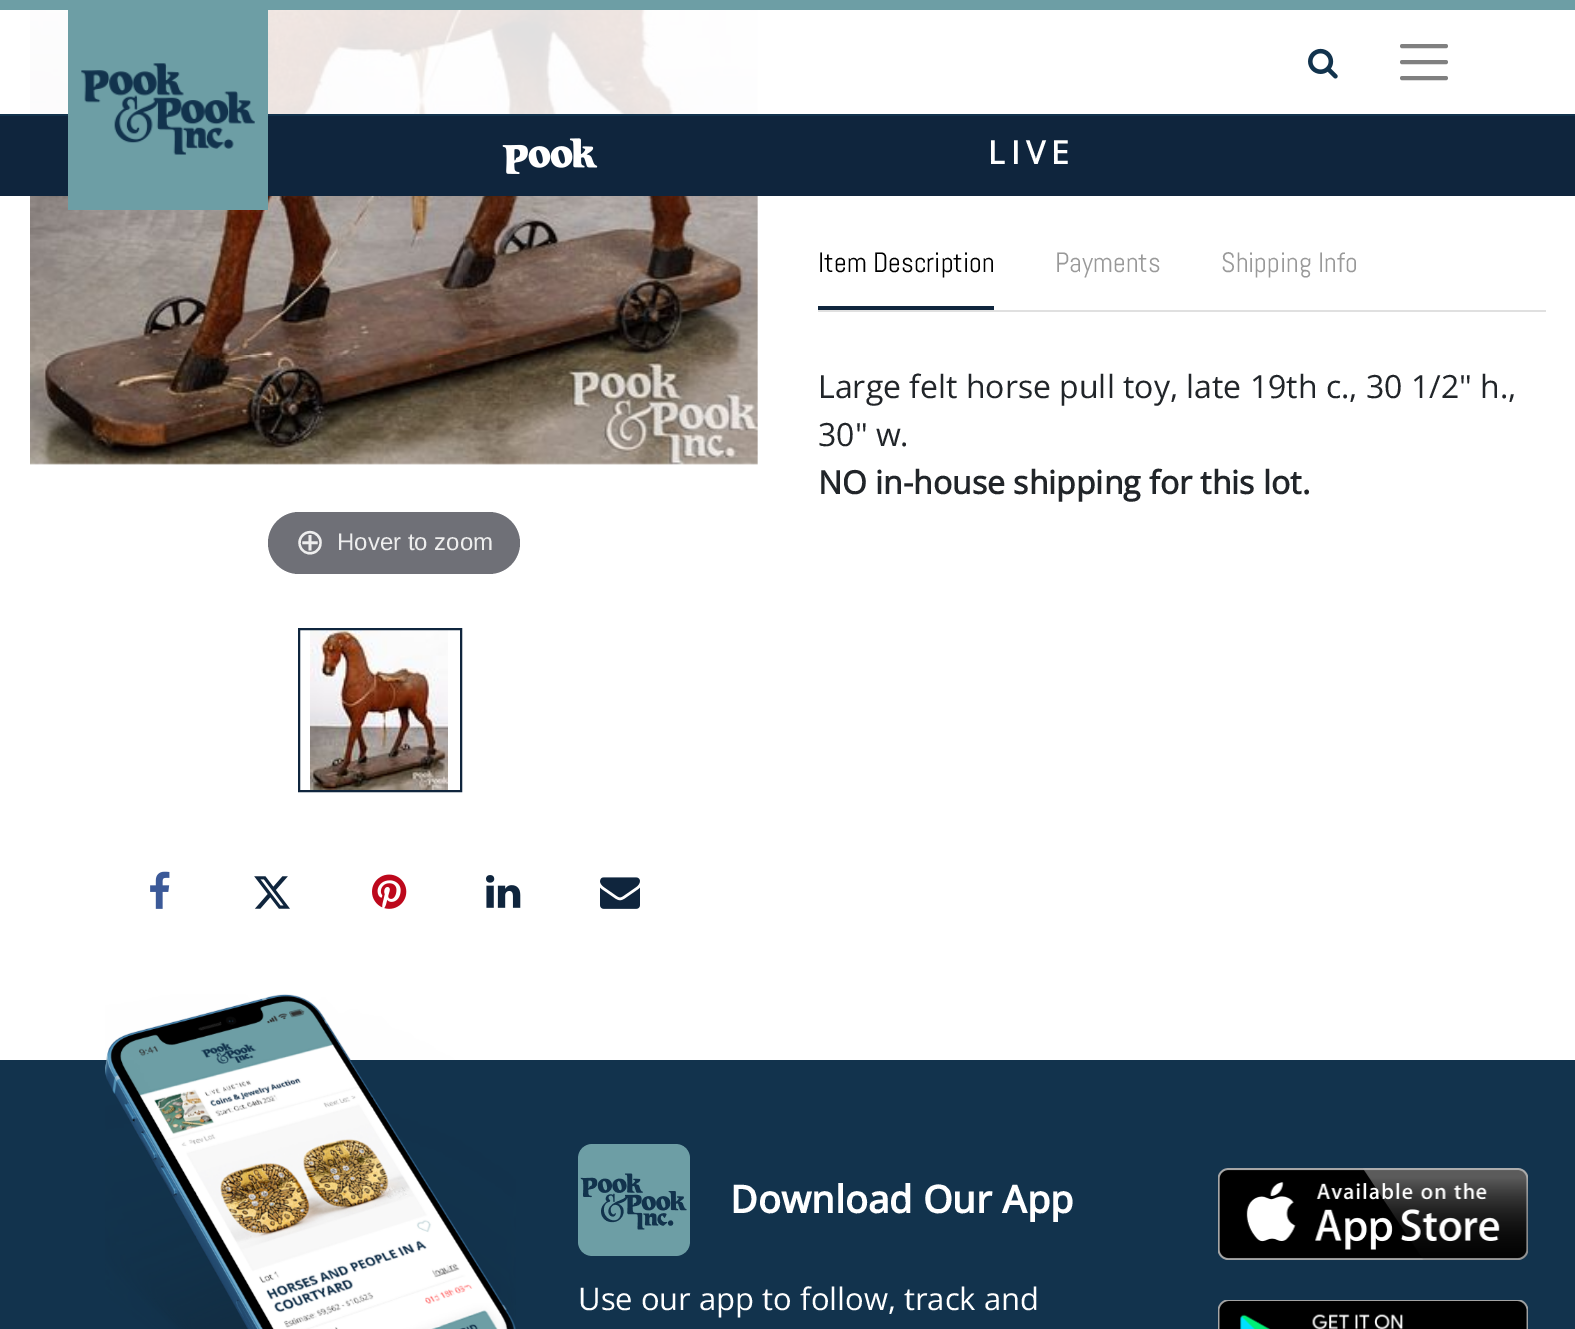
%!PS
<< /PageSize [1575 1329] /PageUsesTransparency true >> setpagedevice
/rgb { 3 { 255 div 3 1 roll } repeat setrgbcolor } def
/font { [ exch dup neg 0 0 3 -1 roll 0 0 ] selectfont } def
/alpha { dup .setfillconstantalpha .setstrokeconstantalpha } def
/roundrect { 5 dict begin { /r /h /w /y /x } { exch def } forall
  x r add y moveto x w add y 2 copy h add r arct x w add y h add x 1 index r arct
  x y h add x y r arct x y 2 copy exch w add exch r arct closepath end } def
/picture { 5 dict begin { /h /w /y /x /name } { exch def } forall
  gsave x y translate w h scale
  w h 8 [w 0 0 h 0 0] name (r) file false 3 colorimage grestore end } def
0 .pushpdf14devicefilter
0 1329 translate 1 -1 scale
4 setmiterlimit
255 255 255 rgb
0 0 1575 1329 rectfill
(img/4.rgb) 30 10 728 455 picture
0.88 alpha
[
  [30 10 728 104 255 255 255]
] { aload pop rgb rectfill } forall
1 alpha
[
  [0 0 1575 10 109 158 165]
  [0 114 1575 2 18 51 77]
  [0 116 1575 80 15 37 61]
] { aload pop rgb rectfill } forall
(img/1.rgb) 68 10 200 200 picture
(img/2.rgb) 1308 48 30 31 picture
128 128 128 rgb
4 setlinewidth
1 setlinecap
1402 46 moveto 1446 46 lineto 1402 62 moveto 1446 62 lineto 1402 78 moveto 1446 78 lineto stroke
(img/3.rgb) 502 138 96 36 picture
224 224 224 rgb
818 310 728 2 rectfill
15 37 61 rgb
818 306 176 4 rectfill
111 112 119 rgb
268 512 252 62 31 roundrect fill
(img/5.rgb) 310 630 138 160 picture
15 37 61 rgb
2 setlinewidth
0 setlinecap
299 629 162 162 rectstroke
(img/6.rgb) 150 871 20 38 picture
(img/7.rgb) 254 876 36 33 picture
(img/8.rgb) 372 874 35 35 picture
(img/9.rgb) 486 875 35 33 picture
(img/10.rgb) 600 877 40 32 picture
18 51 77 rgb
0 1060 1575 269 rectfill
(img/11.rgb) 105 994 411 335 picture
(img/12.rgb) 578 1144 112 112 picture
(img/13.rgb) 1218 1168 310 92 picture
(img/14.rgb) 1218 1300 310 29 picture
/OpenSans-Bold 32 font
255 255 255 rgb
988 164 moveto 6 0 (LIVE) ashow
/Abel-Regular 28 font
0 0 0 rgb
818 272 moveto (Item Description) show
153 153 153 rgb
1055 272 moveto (Payments) show
1221 272 moveto (Shipping Info) show
/OpenSans-Regular 32 font
33 37 41 rgb
818 398 moveto (Large felt horse pull toy, late 19th c., 30 1/2" h.,) show
818 446 moveto (30" w.) show
/OpenSans-Bold 32 font
818 494 moveto (NO in-house shipping for this lot.) show
/DejaVuSans-Regular 36 font
238 238 238 rgb
295 554 moveto (⊕) show
/LiberationSans-Regular 24 font
337 550 moveto (Hover to zoom) show
/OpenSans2-Bold 38 font
255 255 255 rgb
730 1213 moveto (Download Our App) show
/OpenSans2-Regular 31 font
578 1310 moveto (Use our app to follow, track and) show
.poppdf14devicefilter showpage
